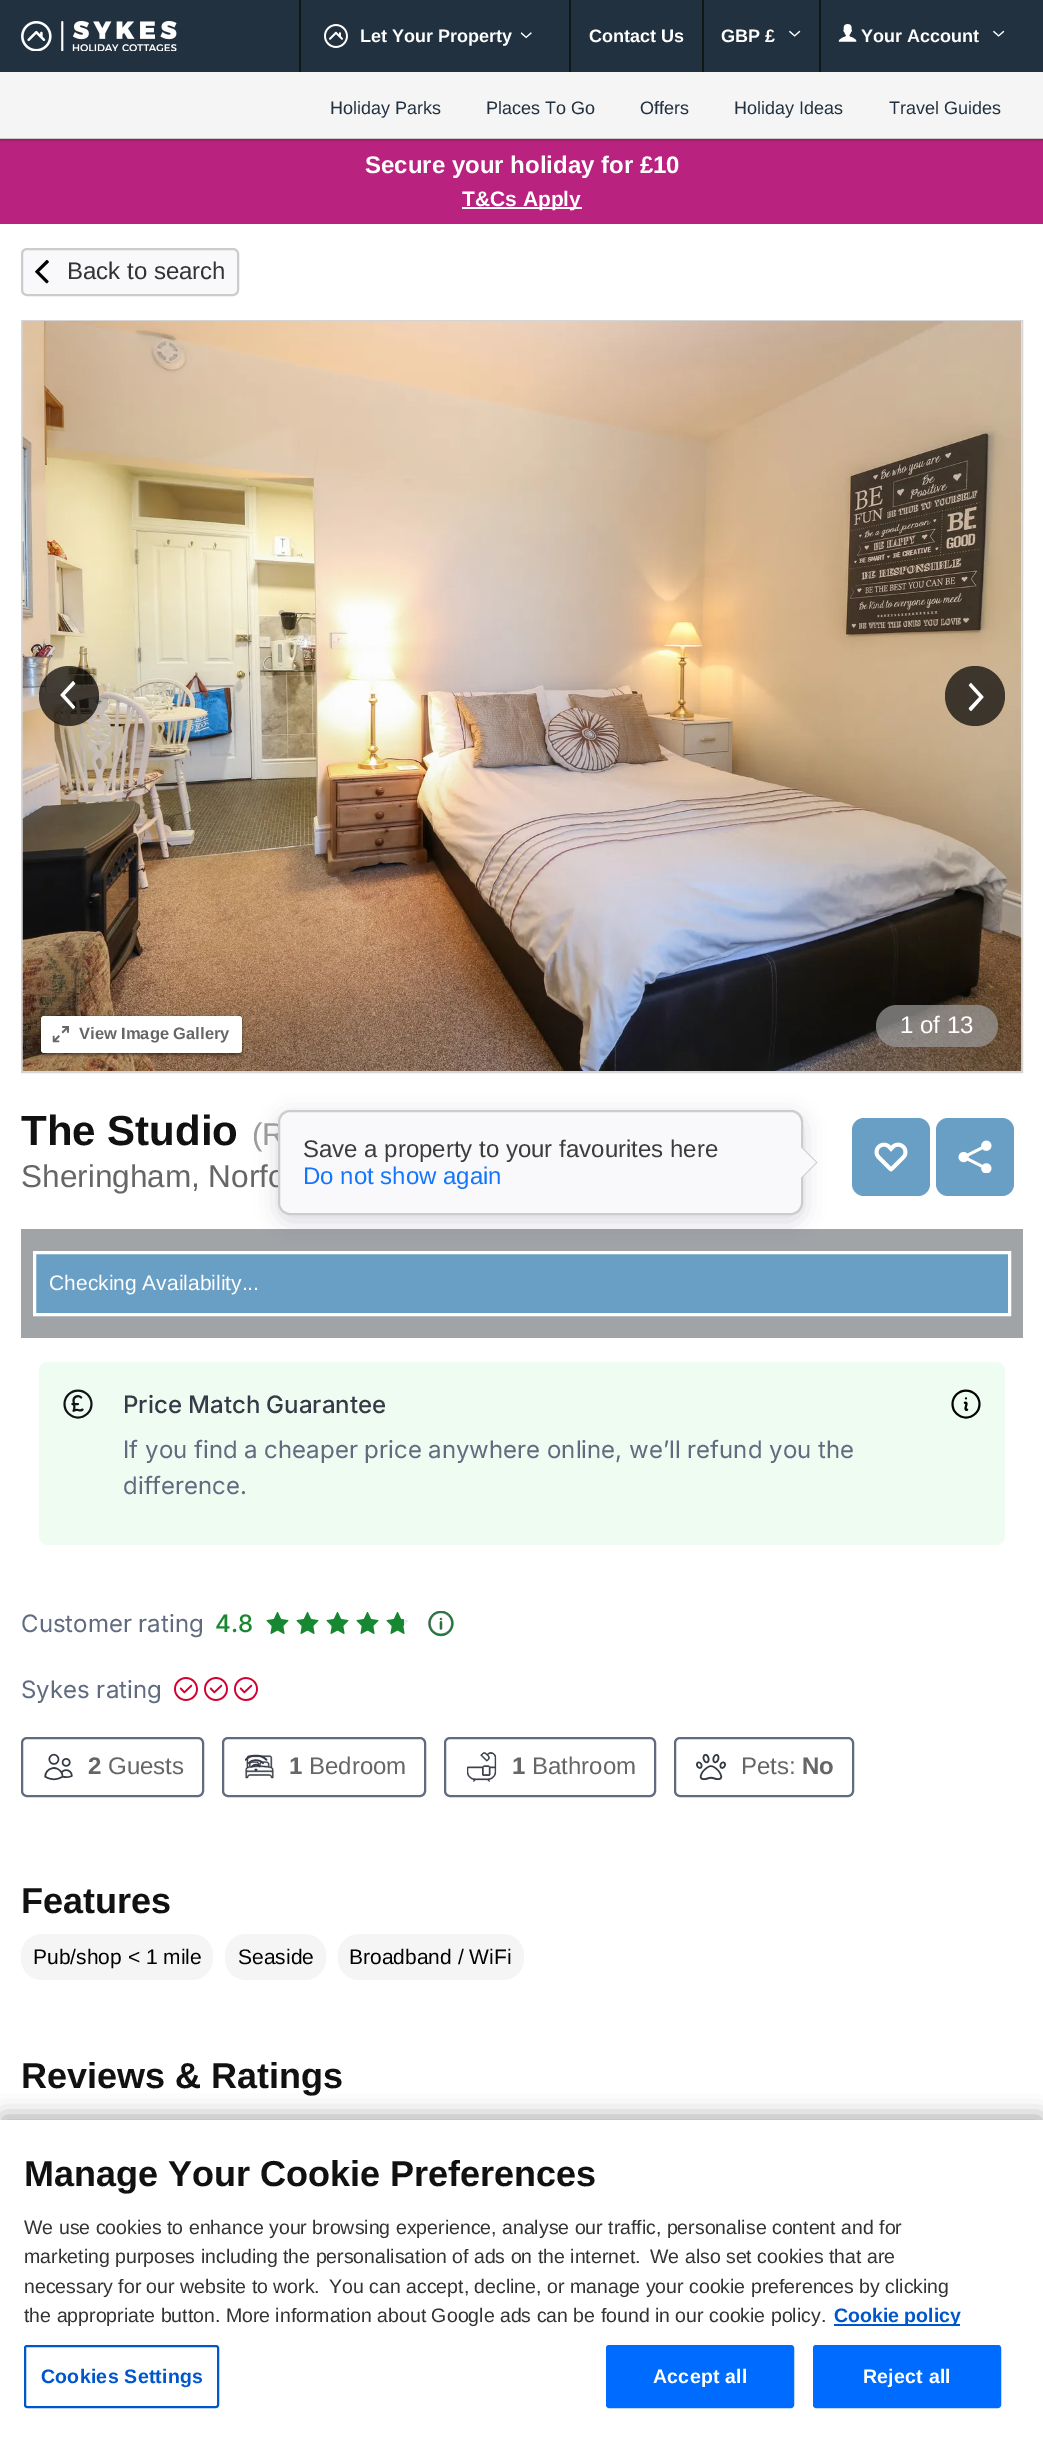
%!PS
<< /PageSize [1043 2437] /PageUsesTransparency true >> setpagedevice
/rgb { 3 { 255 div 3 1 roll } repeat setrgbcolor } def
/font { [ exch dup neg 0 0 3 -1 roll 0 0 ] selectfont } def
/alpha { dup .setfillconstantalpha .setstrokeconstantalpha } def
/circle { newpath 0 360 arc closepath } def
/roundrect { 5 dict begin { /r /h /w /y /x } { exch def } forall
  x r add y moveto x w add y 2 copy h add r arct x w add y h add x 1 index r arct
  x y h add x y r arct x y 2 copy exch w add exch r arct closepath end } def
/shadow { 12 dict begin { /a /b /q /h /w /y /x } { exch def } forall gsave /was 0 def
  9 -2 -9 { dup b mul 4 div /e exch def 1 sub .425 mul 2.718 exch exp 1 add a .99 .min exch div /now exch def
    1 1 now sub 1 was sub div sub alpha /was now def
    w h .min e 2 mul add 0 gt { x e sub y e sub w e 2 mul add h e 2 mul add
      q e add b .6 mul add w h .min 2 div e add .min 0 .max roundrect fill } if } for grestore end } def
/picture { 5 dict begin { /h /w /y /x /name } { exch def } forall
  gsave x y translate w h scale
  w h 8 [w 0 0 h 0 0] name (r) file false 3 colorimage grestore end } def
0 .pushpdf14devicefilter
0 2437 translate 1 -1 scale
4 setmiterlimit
255 255 255 rgb
0 0 1043 2437 rectfill
186 34 127 rgb
0 139 1043 85 rectfill
0 0 0 rgb
0 2 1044 138 0 1.5 0.3 shadow
34 49 63 rgb
0 0 1043 72 rectfill
204 204 204 rgb
0 138 1043 1 rectfill
(img/1.rgb) 21 21 156 30 picture
16 24 23 rgb
299 0 2 72 rectfill
(img/2.rgb) 324 24 24 24 picture
(img/3.rgb) 520 32 12 7 picture
569 0 2 72 rectfill
702 0 2 72 rectfill
(img/4.rgb) 789 30 12 7 picture
819 0 2 72 rectfill
(img/5.rgb) 838 24 19 18 picture
(img/4.rgb) 993 30 12 7 picture
245 245 245 rgb
0 72 1043 66 rectfill
255 255 255 rgb
462 207 120 2 rectfill
249 249 251 rgb
22 249 216 46 5 roundrect gsave fill grestore
204 204 204 rgb
2 setlinewidth
stroke
(img/6.rgb) 35 259 14 25 picture
213 213 213 rgb
22 321 1000 751 rectstroke
241 241 241 rgb
1021 321 1 750 rectfill
(img/7.rgb) 22 321 1000 750 picture
0.7 alpha
0 0 0 rgb
69 696 30 circle fill
1 alpha
(img/8.rgb) 60 681 16 29 picture
0.7 alpha
975 696 30 circle fill
1 alpha
(img/9.rgb) 968 683 16 28 picture
41 1017 201 38 3 1.5 0.5 shadow
255 255 255 rgb
41 1016 201 37 3 roundrect fill
(img/10.rgb) 52 1026 17 17 picture
0.7 alpha
155 155 155 rgb
876 1005 122 42 21 roundrect fill
1 alpha
160 164 167 rgb
21 1229 1002 109 rectfill
105 159 196 rgb
34.5 1252.5 moveto 1009.5 1252.5 lineto 1009.5 1314.5 lineto 34.5 1314.5 lineto closepath gsave fill grestore
255 255 255 rgb
3 setlinewidth
stroke
0 0 40 rgb
278 1116 525 105 12 11 0.15 shadow
105 159 196 rgb
852 1118 78 78 12 roundrect fill
(img/11.rgb) 874 1142 34 30 picture
936 1118 78 78 12 roundrect fill
(img/12.rgb) 958 1140 34 33 picture
239 252 242 rgb
39 1362 966 183 9 roundrect fill
(img/13.rgb) 951 1389 30 30 picture
(img/14.rgb) 63 1389 30 30 picture
(img/15.rgb) 266 1612 23 22 picture
(img/15.rgb) 296 1612 23 22 picture
(img/15.rgb) 326 1612 23 22 picture
(img/15.rgb) 356 1612 23 22 picture
(img/16.rgb) 386 1612 23 22 picture
(img/17.rgb) 428 1611 26 26 picture
(img/18.rgb) 174 1677 24 24 picture
(img/18.rgb) 204 1677 24 24 picture
(img/19.rgb) 234 1677 24 24 picture
96 107 128 rgb
2 setlinewidth
22 1738 181 58 5 roundrect stroke
(img/20.rgb) 44 1753 29 28 picture
223 1738 202 58 5 roundrect stroke
(img/21.rgb) 245 1754 29 25 picture
445 1738 210 58 5 roundrect stroke
(img/22.rgb) 467 1752 30 30 picture
675 1738 178 58 5 roundrect stroke
(img/23.rgb) 696 1753 30 28 picture
245 245 245 rgb
21 1934 192 46 21 roundrect fill
225 1934 101 46 21 roundrect fill
338 1934 186 46 21 roundrect fill
0 0 0 rgb
3 2117 1038 312 0 10.5 0.35 shadow
255 255 255 rgb
0 2120 1043 317 rectfill
0 86 204 rgb
834 2324 126 2 rectfill
25 2346 193 61 2 roundrect stroke
0 108 255 rgb
607 2346 186 61 2 roundrect gsave fill grestore
stroke
814 2346 186 61 2 roundrect gsave fill grestore
stroke
/LiberationSans-Bold 18 font
255 255 255 rgb
[
  [(Let Your Property) 360 42]
  [(Contact Us) 589 42]
  [(GBP £) 721 42]
  [(Your Account) 861 42]
] { aload pop moveto show } forall
/LiberationSans-Regular 18 font
34 49 63 rgb
[
  [(Holiday Parks) 330 114]
  [(Places To Go) 486 114]
  [(Offers) 640 114]
  [(Holiday Ideas) 734 114]
  [(Travel Guides) 889 114]
] { aload pop moveto show } forall
/LiberationSans-Bold 24 font
255 255 255 rgb
365 173 moveto (Secure your holiday for £10) show
/LiberationSans-Bold 21 font
462 206 moveto (T&Cs Apply) show
/LiberationSans-Regular 24 font
51 51 51 rgb
67 279 moveto (Back to search) show
/LiberationSans-Bold 16.5 font
102 102 102 rgb
79 1039 moveto (View Image Gallery) show
/LiberationSans-Regular 24 font
255 255 255 rgb
900 1033 moveto (1 of 13) show
/LiberationSans-Bold 42 font
17 17 17 rgb
21 1145 moveto (The Studio) show
/LiberationSans-Regular 31.5 font
155 155 155 rgb
252 1145 moveto (\(R) show
102 102 102 rgb
21 1187 moveto (Sheringham, Norfo) show
249 249 251 rgb
279 1111 523 103 11 roundrect gsave fill grestore
204 204 204 rgb
stroke
/LiberationSans-Regular 24 font
60 60 60 rgb
303 1157 moveto (Save a property to your favourites here) show
204 204 204 rgb
801 1179 moveto 801 1146 lineto 817.5 1162.5 lineto closepath fill
19 118 252 rgb
303 1184 moveto (Do not show again) show
249 249 251 rgb
801 1177.5 moveto 801 1147.5 lineto 816 1162.5 lineto closepath fill
/LiberationSans-Regular 21 font
255 255 255 rgb
49 1290 moveto (Checking Availability...) show
/Inter-Medium 24 font
53 58 70 rgb
123 1413 moveto (Price Match Guarantee) show
/Inter-Regular 24 font
96 107 128 rgb
[
  [(If you find a cheaper price anywhere online, we’ll refund you the) 123 1458]
  [(difference.) 123 1494]
  [(Customer rating) 21 1632]
] { aload pop moveto show } forall
/Inter-Medium 24 font
23 135 49 rgb
215 1632 moveto (4.8) show
/Inter-Regular 24 font
96 107 128 rgb
21 1698 moveto (Sykes rating) show
/LiberationSans-Bold 24 font
102 102 102 rgb
88 1774 moveto (2) show
/LiberationSans-Regular 24 font
108 1774 moveto (Guests) show
/LiberationSans-Bold 24 font
289 1774 moveto (1) show
/LiberationSans-Regular 24 font
309 1774 moveto (Bedroom) show
/LiberationSans-Bold 24 font
512 1774 moveto (1) show
/LiberationSans-Regular 24 font
532 1774 moveto (Bathroom) show
741 1774 moveto (Pets:) show
/LiberationSans-Bold 24 font
802 1774 moveto (No) show
/LiberationSans-Bold 36 font
17 17 17 rgb
21 1913 moveto (Features) show
/LiberationSans-Regular 21 font
0 0 0 rgb
[
  [(Pub/shop < 1 mile) 33 1964]
  [(Seaside) 238 1964]
  [(Broadband / WiFi) 349 1964]
] { aload pop moveto show } forall
/LiberationSans-Bold 36 font
17 17 17 rgb
21 2088 moveto (Reviews & Ratings) show
24 2186 moveto (Manage Your Cookie Preferences) show
/LiberationSans-Regular 19.5 font
51 51 51 rgb
[
  [(We use cookies to enhance your browsing experience, analyse our traffic, personalise content and for) 24 2234]
  [(marketing purposes including the personalisation of ads on the internet.  We also set cookies that are) 24 2263]
  [(necessary for our website to work.  You can accept, decline, or manage your cookie preferences by clicking) 24 2293]
  [(the appropriate button. More information about Google ads can be found in our cookie policy.) 24 2322]
] { aload pop moveto show } forall
/LiberationSans-Bold 19.5 font
0 86 204 rgb
834 2322 moveto (Cookie policy) show
41 2383 moveto 0.25 0 (Cookies Settings) ashow
255 255 255 rgb
653 2383 moveto 0.25 0 (Accept all) ashow
863 2383 moveto 0.25 0 (Reject all) ashow
.poppdf14devicefilter showpage
